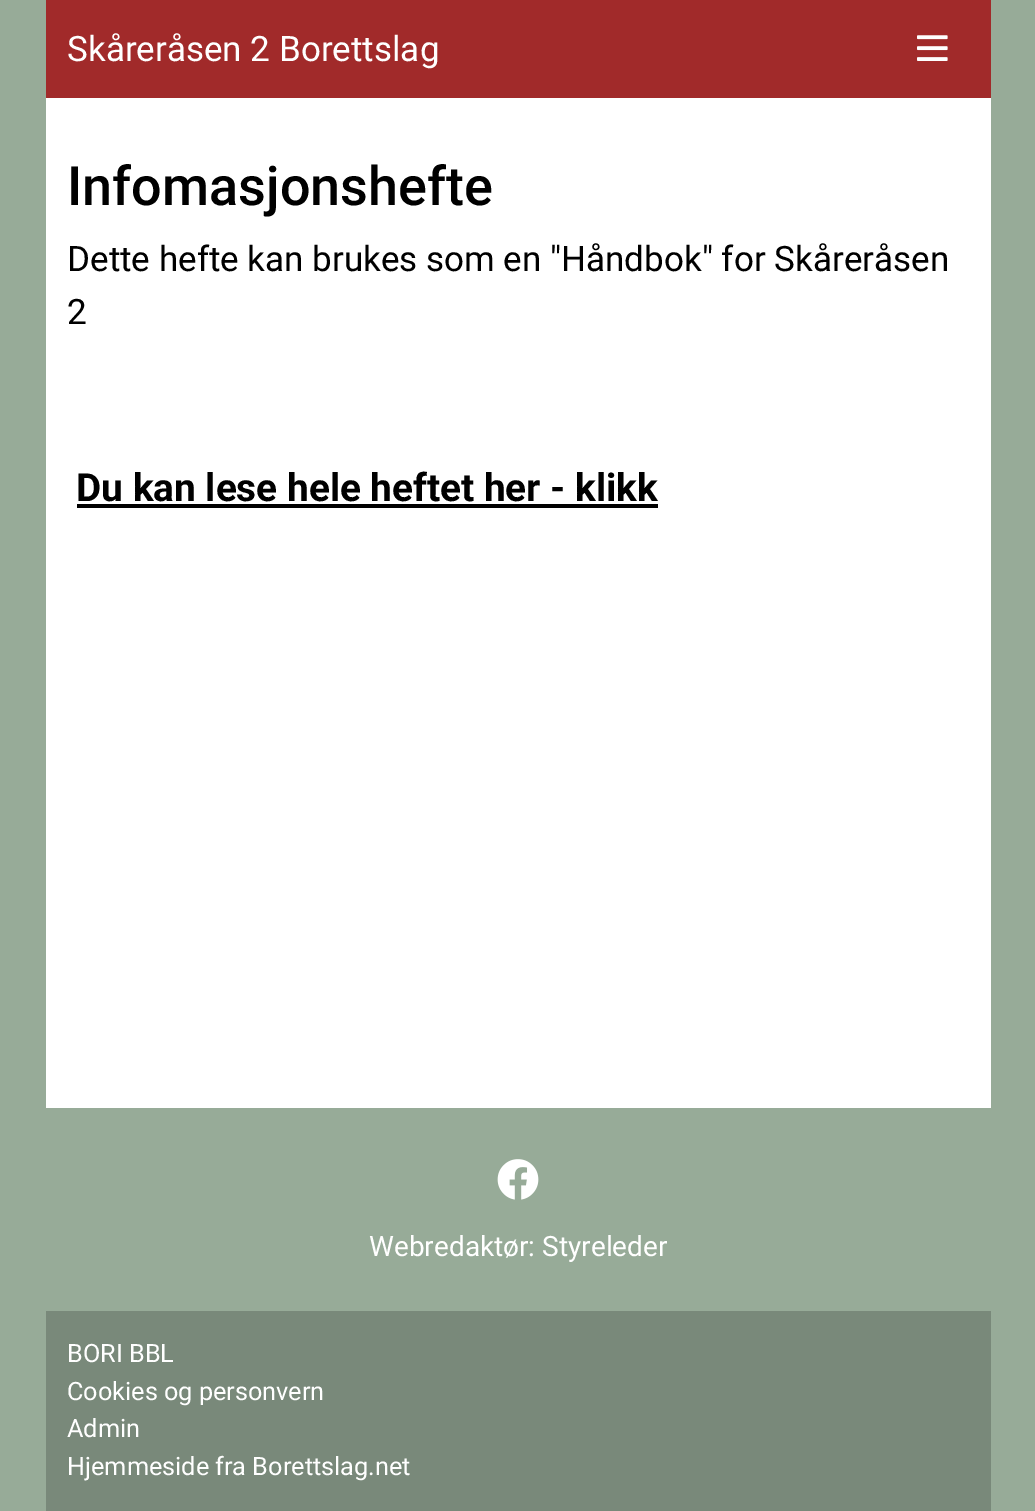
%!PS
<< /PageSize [1035 1511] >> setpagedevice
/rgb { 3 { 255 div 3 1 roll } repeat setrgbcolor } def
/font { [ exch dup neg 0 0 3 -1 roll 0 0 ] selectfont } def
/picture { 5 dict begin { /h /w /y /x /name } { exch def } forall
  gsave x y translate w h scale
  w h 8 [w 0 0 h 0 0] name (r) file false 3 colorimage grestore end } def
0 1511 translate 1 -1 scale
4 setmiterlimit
151 171 152 rgb
0 0 1035 1511 rectfill
255 255 255 rgb
46 98 945 1010 rectfill
161 42 42 rgb
46 0 945 98 rectfill
(img/1.rgb) 917 35 31 26 picture
0 0 0 rgb
77 504 581 4 rectfill
(img/2.rgb) 497 1159 42 41 picture
121 137 122 rgb
46 1311 945 200 rectfill
/Roboto-Regular 35 font
255 255 255 rgb
67 61 moveto (Skåreråsen 2 Borettslag) show
/Roboto-Medium 54 font
0 0 0 rgb
67 205 moveto (Infomasjonshefte) show
/Roboto-Regular 35 font
67 271 moveto (Dette hefte kan brukes som en "Håndbok" for Skåreråsen) show
67 324 moveto (2) show
/Roboto-Bold 38.75 font
76 501 moveto (Du kan lese hele heftet her - klikk) show
/Roboto-Regular 28 font
255 255 255 rgb
369 1256 moveto (Webredaktør: Styreleder) show
/Roboto-Regular 25.25 font
[
  [(BORI BBL) 67 1362]
  [(Cookies og personvern) 67 1400]
  [(Admin) 67 1437]
  [(Hjemmeside fra Borettslag.net) 67 1475]
] { aload pop moveto show } forall
showpage
